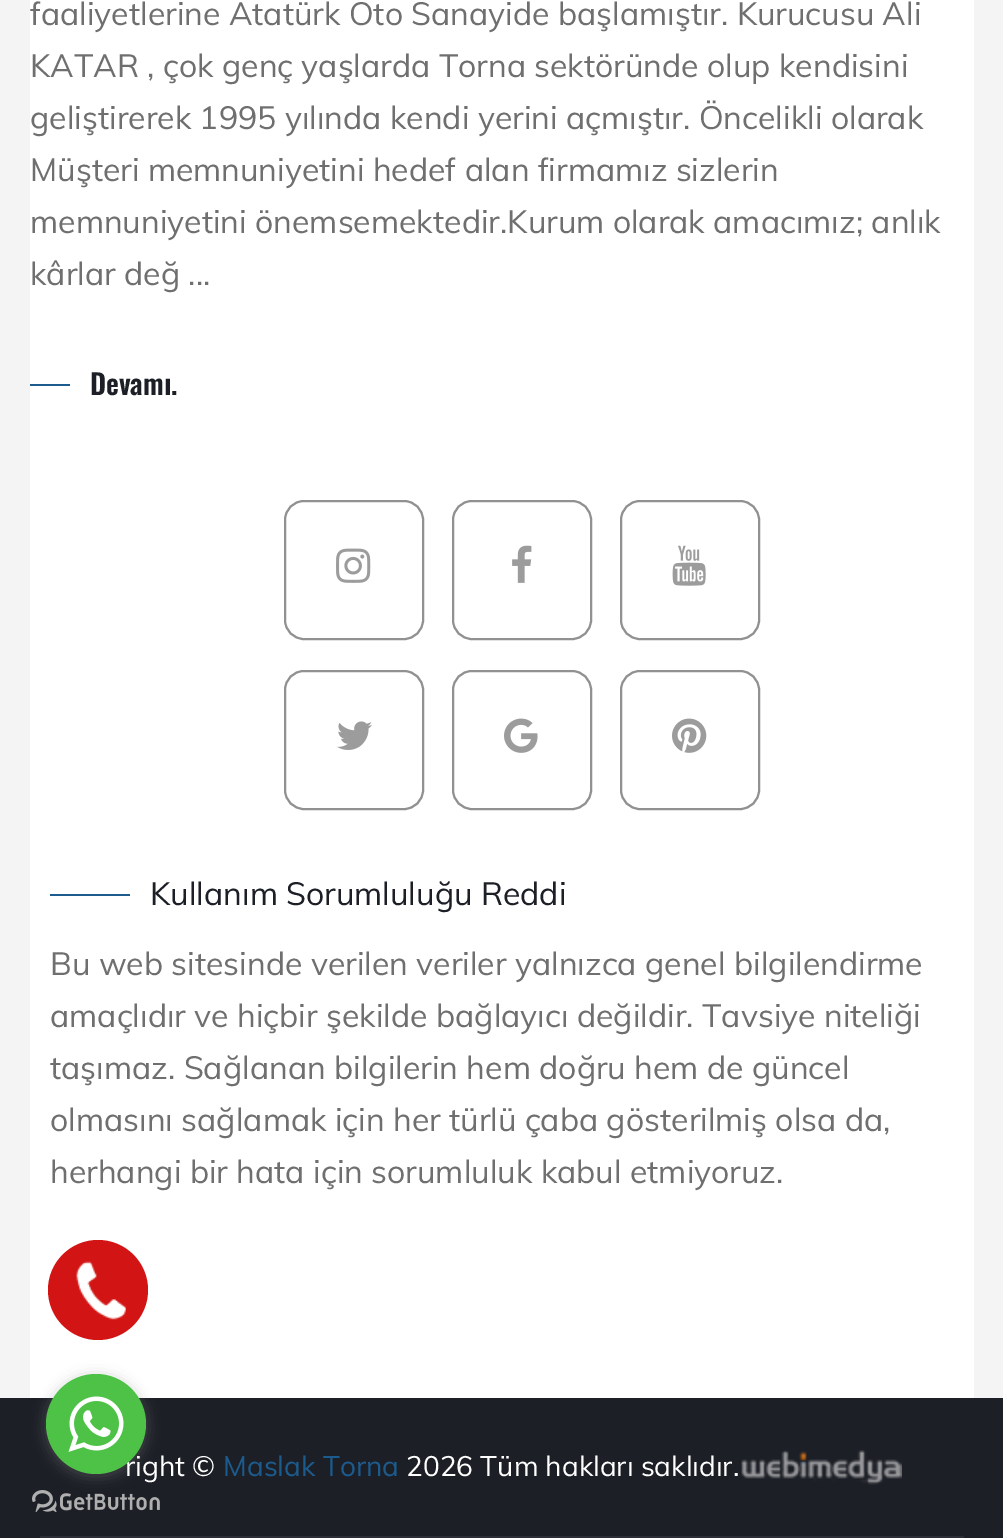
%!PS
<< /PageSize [1003 1539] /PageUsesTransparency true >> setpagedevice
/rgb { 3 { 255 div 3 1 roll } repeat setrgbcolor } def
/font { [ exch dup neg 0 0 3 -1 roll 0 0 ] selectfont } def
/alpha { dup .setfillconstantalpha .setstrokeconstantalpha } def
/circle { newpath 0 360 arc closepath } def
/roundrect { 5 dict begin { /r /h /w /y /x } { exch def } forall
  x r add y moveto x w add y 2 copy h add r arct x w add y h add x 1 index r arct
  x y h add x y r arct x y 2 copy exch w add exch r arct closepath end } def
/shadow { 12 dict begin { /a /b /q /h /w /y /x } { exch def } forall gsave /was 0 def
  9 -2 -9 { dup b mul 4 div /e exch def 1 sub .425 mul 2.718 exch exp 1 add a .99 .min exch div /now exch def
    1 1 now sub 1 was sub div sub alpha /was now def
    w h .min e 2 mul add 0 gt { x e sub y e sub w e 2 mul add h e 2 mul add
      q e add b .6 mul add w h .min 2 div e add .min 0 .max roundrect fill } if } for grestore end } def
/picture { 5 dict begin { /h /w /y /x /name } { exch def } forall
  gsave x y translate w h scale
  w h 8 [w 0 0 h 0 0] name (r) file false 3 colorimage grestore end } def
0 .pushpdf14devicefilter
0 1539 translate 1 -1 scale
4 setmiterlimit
255 255 255 rgb
0 0 1003 1539 rectfill
[
  [974 0 29 1398 244 244 244]
  [0 0 30 1398 244 244 244]
  [30 384 40 2 28 91 142]
] { aload pop rgb rectfill } forall
146 145 145 rgb
2 setlinewidth
285 501 138 138 19 roundrect stroke
(img/1.rgb) 336 548 35 35 picture
453 501 138 138 19 roundrect stroke
(img/2.rgb) 512 545 20 38 picture
621 501 138 138 19 roundrect stroke
(img/3.rgb) 672 545 34 41 picture
285 671 138 138 19 roundrect stroke
(img/4.rgb) 337 721 35 29 picture
453 671 138 138 19 roundrect stroke
(img/5.rgb) 504 718 34 35 picture
621 671 138 138 19 roundrect stroke
(img/6.rgb) 672 718 35 35 picture
[
  [50 894 80 2 28 91 142]
  [0 1398 1003 140 28 31 38]
  [40 1536 924 2 44 47 55]
] { aload pop rgb rectfill } forall
(img/7.rgb) 741 1450 161 35 picture
210 20 20 rgb
98 1290 50 circle fill
(img/8.rgb) 76 1261 50 59 picture
(img/10.rgb) 32 1490 128 22 picture
136 136 136 rgb
46 1376 100 100 50 7 0.4 shadow
/Muli-Regular 32 font
111 111 111 rgb
[
  [(faaliyetlerine Atatürk Oto Sanayide başlamıştır. Kurucusu Ali) 30 25]
  [(KATAR , çok genç yaşlarda Torna sektöründe olup kendisini) 30 77]
  [(geliştirerek 1995 yılında kendi yerini açmıştır. Öncelikli olarak) 30 129]
  [(Müşteri memnuniyetini hedef alan firmamız sizlerin) 30 181]
  [(memnuniyetini önemsemektedir.Kurum olarak amacımız; anlık) 30 233]
  [(kârlar değ ...) 30 285]
] { aload pop moveto show } forall
/Oswald-SemiBold 28 font
28 31 38 rgb
90 395 moveto (Devamı.) show
/Muli-Regular 32 font
150 905 moveto (Kullanım Sorumluluğu Reddi) show
111 111 111 rgb
[
  [(Bu web sitesinde verilen veriler yalnızca genel bilgilendirme) 50 975]
  [(amaçlıdır ve hiçbir şekilde bağlayıcı değildir. Tavsiye niteliği) 50 1027]
  [(taşımaz. Sağlanan bilgilerin hem doğru hem de güncel) 50 1079]
  [(olmasını sağlamak için her türlü çaba gösterilmiş olsa da,) 50 1131]
  [(herhangi bir hata için sorumluluk kabul etmiyoruz.) 50 1183]
] { aload pop moveto show } forall
/Muli-Regular 28 font
255 255 255 rgb
125 1476 moveto (right ©) show
28 91 142 rgb
223 1476 moveto (Maslak Torna) show
255 255 255 rgb
406 1476 moveto (2026 Tüm hakları saklıdır.) show
77 194 71 rgb
96 1424 50 circle fill
(img/9.rgb) 68 1396 56 56 picture
.poppdf14devicefilter showpage
